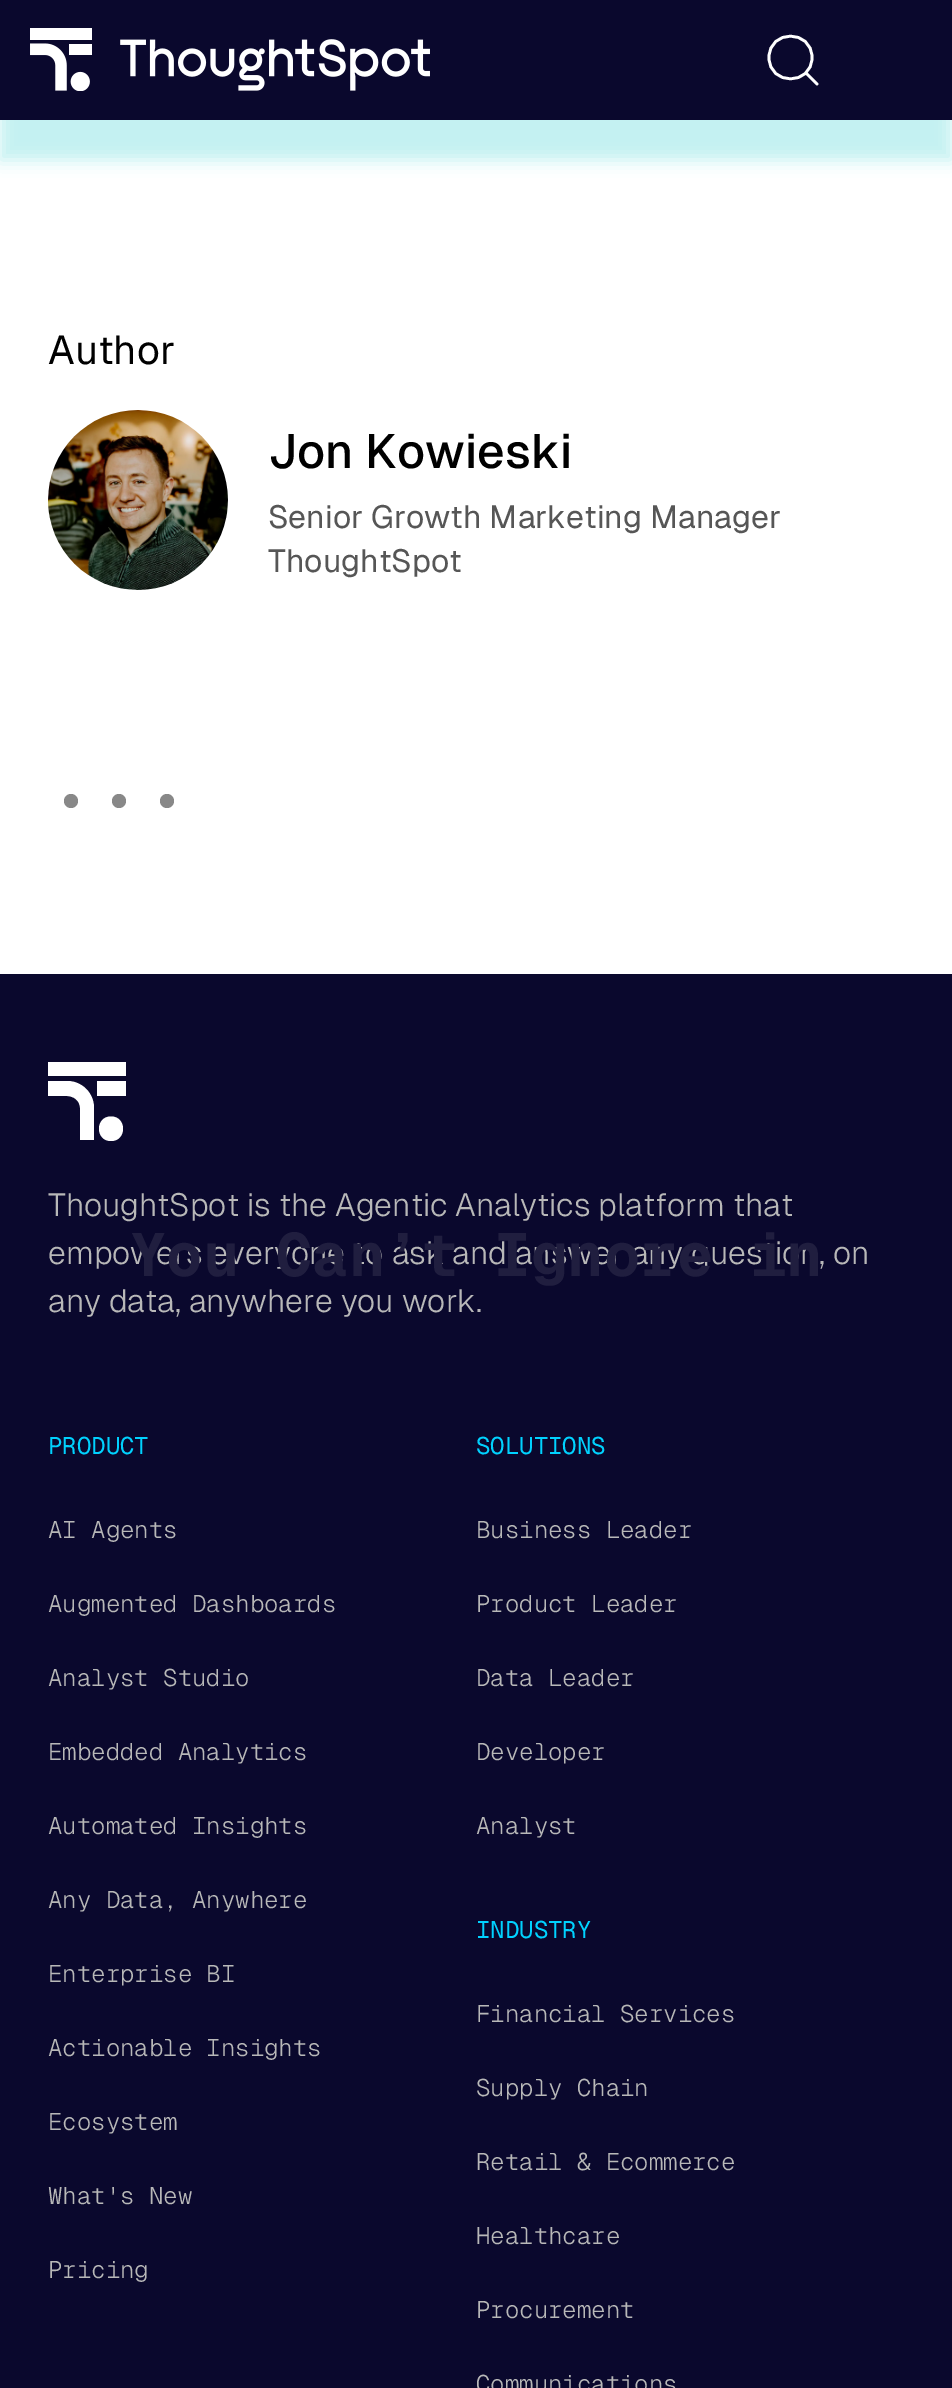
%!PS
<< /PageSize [952 2388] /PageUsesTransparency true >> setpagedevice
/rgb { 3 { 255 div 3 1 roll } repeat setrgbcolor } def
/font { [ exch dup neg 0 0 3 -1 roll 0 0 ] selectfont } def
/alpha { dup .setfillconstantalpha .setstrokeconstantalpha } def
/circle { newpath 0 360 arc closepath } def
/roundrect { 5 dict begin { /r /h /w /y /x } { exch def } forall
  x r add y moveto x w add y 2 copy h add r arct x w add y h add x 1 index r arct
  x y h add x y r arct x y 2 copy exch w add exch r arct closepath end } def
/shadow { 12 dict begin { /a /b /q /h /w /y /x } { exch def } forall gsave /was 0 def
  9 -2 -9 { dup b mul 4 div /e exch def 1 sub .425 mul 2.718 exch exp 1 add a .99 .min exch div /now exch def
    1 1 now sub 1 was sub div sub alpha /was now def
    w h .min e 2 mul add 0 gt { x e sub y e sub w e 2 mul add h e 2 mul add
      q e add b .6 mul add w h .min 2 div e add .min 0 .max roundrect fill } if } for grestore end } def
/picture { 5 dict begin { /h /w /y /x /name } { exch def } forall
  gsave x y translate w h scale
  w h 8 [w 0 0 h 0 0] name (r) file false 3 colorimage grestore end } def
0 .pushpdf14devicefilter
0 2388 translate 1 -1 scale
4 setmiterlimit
255 255 255 rgb
0 0 952 2388 rectfill
88 215 219 rgb
0 100 952 60 0 8 0.35 shadow
10 8 45 rgb
0 0 952 120 rectfill
(img/1.rgb) 30 28 400 63 picture
255 255 255 rgb
2.7 setlinewidth
1 setlinecap
1 setlinejoin
806 73 moveto 817 84 lineto stroke
0 setlinecap
812 57.5 moveto 812 29 769 29 769 57.5 curveto 769 86 812 86 812 57.5 curveto closepath stroke
(img/2.rgb) 48 410 180 180 picture
136 136 136 rgb
71 801 7 circle fill
119 801 7 circle fill
167 801 7 circle fill
[
  [0 974 952 1414 10 8 45]
  [48 1062 78 14 255 255 255]
  [97 1081 29 15 255 255 255]
] { aload pop rgb rectfill } forall
67 1081 moveto 48 1081 lineto 48 1096 lineto 67 1096 lineto 74 1096 80 1101 80 1108 curveto 80 1140 lineto 94 1140 lineto 94 1108 lineto 94 1093 82 1081 67 1081 curveto closepath fill
111 1116.5 moveto 95 1116.5 95 1141 111 1141 curveto 127 1141 127 1116.5 111 1116.5 curveto closepath fill
/Geist-Regular 40 font
0 0 0 rgb
48 364 moveto (Author) show
/Geist-Medium 48 font
268 468 moveto (Jon Kowieski) show
/Geist-Regular 32 font
86 86 86 rgb
268 528 moveto (Senior Growth Marketing Manager) show
268 572 moveto (ThoughtSpot) show
/Geist-Light 32 font
184 184 184 rgb
[
  [(ThoughtSpot is the Agentic Analytics platform that) 48 1216]
  [(empowers everyone to ask and answer any question, on) 48 1264]
  [(any data, anywhere you work.) 48 1312]
] { aload pop moveto show } forall
/GeistMono-Regular 24 font
0 210 255 rgb
48 1454 moveto (PRODUCT) show
/GeistMono-Light 24 font
184 184 184 rgb
[
  [(AI Agents) 48 1538]
  [(Augmented Dashboards) 48 1612]
  [(Analyst Studio) 48 1686]
  [(Embedded Analytics) 48 1760]
  [(Automated Insights) 48 1834]
  [(Any Data, Anywhere) 48 1908]
  [(Enterprise BI) 48 1982]
  [(Actionable Insights) 48 2056]
  [(Ecosystem) 48 2130]
  [(What's New) 48 2204]
  [(Pricing) 48 2278]
] { aload pop moveto show } forall
/GeistMono-Regular 24 font
0 210 255 rgb
476 1454 moveto (SOLUTIONS) show
/GeistMono-Light 24 font
184 184 184 rgb
[
  [(Business Leader) 476 1538]
  [(Product Leader) 476 1612]
  [(Data Leader) 476 1686]
  [(Developer) 476 1760]
  [(Analyst) 476 1834]
] { aload pop moveto show } forall
/GeistMono-Regular 24 font
0 210 255 rgb
476 1938 moveto (INDUSTRY) show
/GeistMono-Light 24 font
184 184 184 rgb
[
  [(Financial Services) 476 2022]
  [(Supply Chain) 476 2096]
  [(Retail & Ecommerce) 476 2170]
  [(Healthcare) 476 2244]
  [(Procurement) 476 2318]
  [(Communications) 476 2392]
] { aload pop moveto show } forall
/GeistMono-Bold 60.75 font
32 30 63 rgb
130 1276 moveto (You Can’t Ignore in) show
.poppdf14devicefilter showpage
